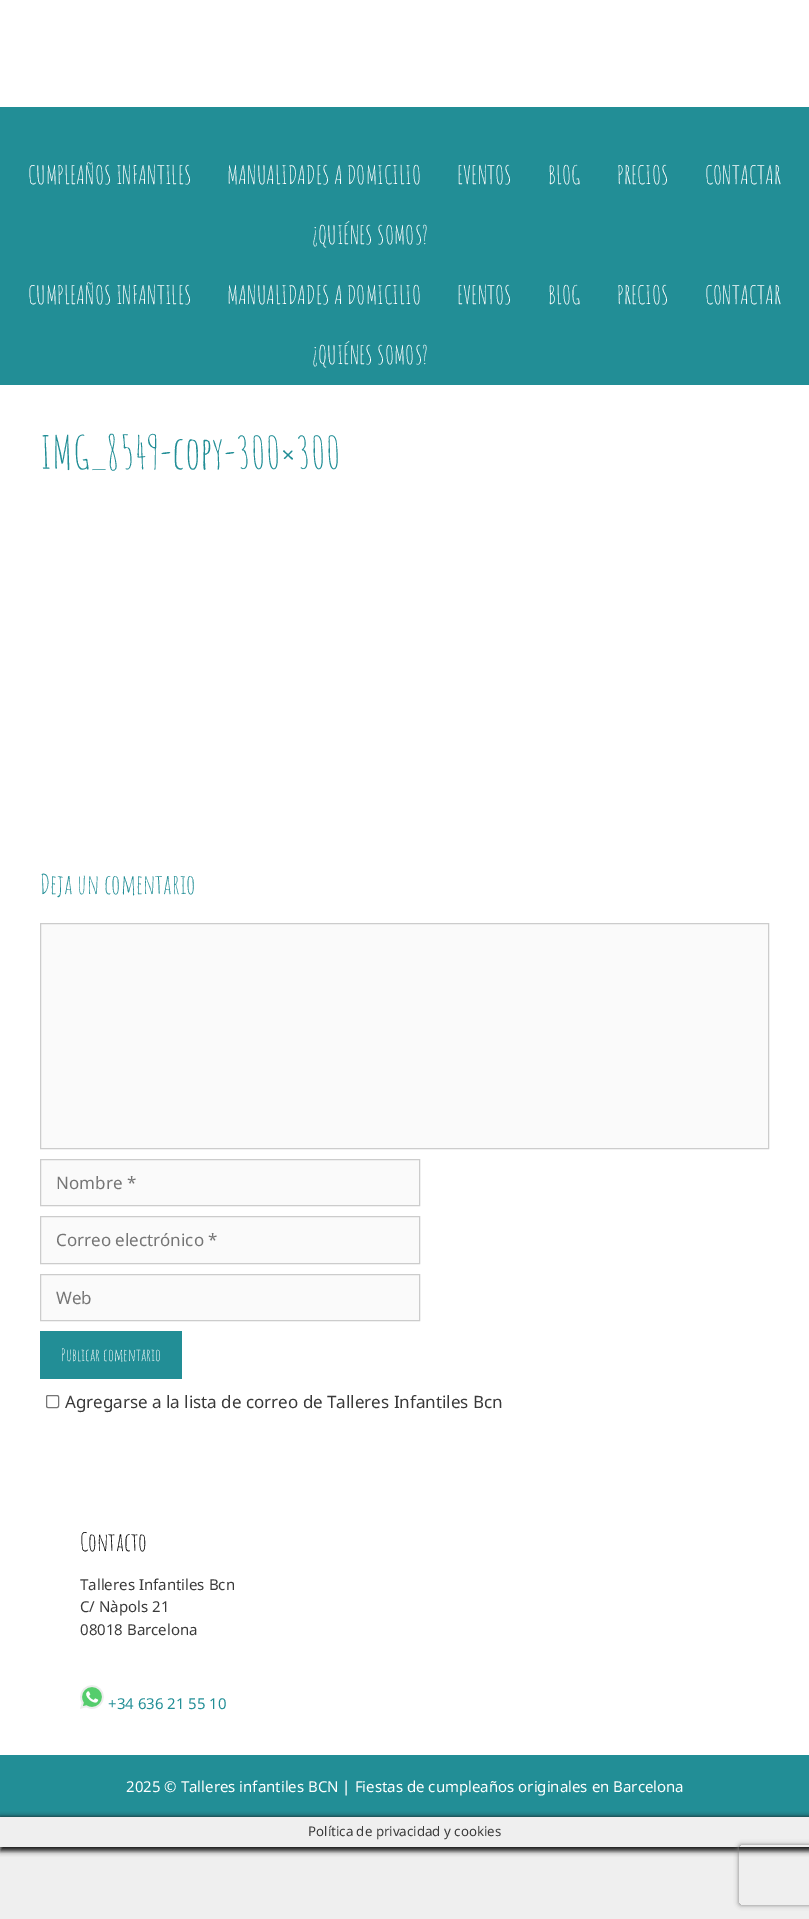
%!PS
<< /PageSize [809 1919] /PageUsesTransparency true >> setpagedevice
/rgb { 3 { 255 div 3 1 roll } repeat setrgbcolor } def
/font { [ exch dup neg 0 0 3 -1 roll 0 0 ] selectfont } def
/alpha { dup .setfillconstantalpha .setstrokeconstantalpha } def
/roundrect { 5 dict begin { /r /h /w /y /x } { exch def } forall
  x r add y moveto x w add y 2 copy h add r arct x w add y h add x 1 index r arct
  x y h add x y r arct x y 2 copy exch w add exch r arct closepath end } def
/shadow { 12 dict begin { /a /b /q /h /w /y /x } { exch def } forall gsave /was 0 def
  9 -2 -9 { dup b mul 4 div /e exch def 1 sub .425 mul 2.718 exch exp 1 add a .99 .min exch div /now exch def
    1 1 now sub 1 was sub div sub alpha /was now def
    w h .min e 2 mul add 0 gt { x e sub y e sub w e 2 mul add h e 2 mul add
      q e add b .6 mul add w h .min 2 div e add .min 0 .max roundrect fill } if } for grestore end } def
/picture { 5 dict begin { /h /w /y /x /name } { exch def } forall
  gsave x y translate w h scale
  w h 8 [w 0 0 h 0 0] name (r) file false 3 colorimage grestore end } def
0 .pushpdf14devicefilter
0 1919 translate 1 -1 scale
4 setmiterlimit
239 239 239 rgb
0 0 809 1919 rectfill
[
  [0 0 809 107 255 255 255]
  [0 107 809 278 34 142 150]
  [0 385 809 1370 255 255 255]
] { aload pop rgb rectfill } forall
250 250 250 rgb
40.5 923.5 moveto 768.5 923.5 lineto 768.5 1148.5 lineto 40.5 1148.5 lineto closepath gsave fill grestore
204 204 204 rgb
stroke
250 250 250 rgb
40.5 1159.5 moveto 419.5 1159.5 lineto 419.5 1205.5 lineto 40.5 1205.5 lineto closepath gsave fill grestore
204 204 204 rgb
stroke
250 250 250 rgb
40.5 1216.5 moveto 419.5 1216.5 lineto 419.5 1263.5 lineto 40.5 1263.5 lineto closepath gsave fill grestore
204 204 204 rgb
stroke
250 250 250 rgb
40.5 1274.5 moveto 419.5 1274.5 lineto 419.5 1320.5 lineto 40.5 1320.5 lineto closepath gsave fill grestore
204 204 204 rgb
stroke
34 142 150 rgb
40 1331 142 48 rectfill
118 118 118 rgb
46.5 1395.5 12 12 1.5 roundrect stroke
(img/1.rgb) 80 1685 24 24 picture
34 142 150 rgb
0 1755 809 62 rectfill
gsave
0 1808 moveto 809 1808 lineto 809 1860 lineto 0 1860 lineto closepath 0 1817 moveto 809 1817 lineto 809 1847 lineto 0 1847 lineto closepath eoclip newpath
22 22 22 rgb
0 1817 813 34 0 2.5 1 shadow
grestore
gsave
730 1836 moveto 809 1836 lineto 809 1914 lineto 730 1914 lineto closepath 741 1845 moveto 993 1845 lineto 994 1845 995 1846 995 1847 curveto 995 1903 lineto 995 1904 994 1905 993 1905 curveto 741 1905 lineto 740 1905 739 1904 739 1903 curveto 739 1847 lineto 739 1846 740 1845 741 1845 curveto closepath eoclip newpath
128 128 128 rgb
739 1845 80 60 2 2.5 1 shadow
grestore
/AmaticSC-Regular 25 font
255 255 255 rgb
[
  [(CUMPLEAÑOS INFANTILES) 28 184]
  [(MANUALIDADES A DOMICILIO) 227 184]
  [(EVENTOS) 457 184]
  [(BLOG) 548 184]
  [(PRECIOS) 617 184]
  [(CONTACTAR) 705 184]
  [(¿QUIÉNES SOMOS?) 312 244]
  [(CUMPLEAÑOS INFANTILES) 28 304]
  [(MANUALIDADES A DOMICILIO) 227 304]
  [(EVENTOS) 457 304]
  [(BLOG) 548 304]
  [(PRECIOS) 617 304]
  [(CONTACTAR) 705 304]
  [(¿QUIÉNES SOMOS?) 312 364]
] { aload pop moveto show } forall
/AmaticSC-Regular 45 font
34 142 150 rgb
40 469 moveto (IMG_8549-copy-300×300) show
/AmaticSC-Regular 27 font
40 894 moveto (Deja un comentario) show
/NotoSans-Regular 17 font
117 117 117 rgb
[
  [(Nombre *) 56 1189]
  [(Correo electrónico *) 56 1246]
  [(Web) 56 1304]
] { aload pop moveto show } forall
/AmaticSC-Regular 17 font
255 255 255 rgb
61 1361 moveto (Publicar comentario) show
/NotoSans-Regular 17 font
58 58 58 rgb
65 1408 moveto (Agregarse a la lista de correo de Talleres Infantiles Bcn) show
/AmaticSC-Regular 25 font
0 0 0 rgb
80 1551 moveto (Contacto) show
/NotoSans-Regular 15 font
58 58 58 rgb
[
  [(Talleres Infantiles Bcn) 80 1590]
  [(C/ Nàpols 21) 80 1612]
  [(08018 Barcelona) 80 1635]
] { aload pop moveto show } forall
34 142 150 rgb
108 1709 moveto (+34 636 21 55 10) show
255 255 255 rgb
126 1792 moveto (2025 © Talleres infantiles BCN | Fiestas de cumpleaños originales en Barcelona) show
/NotoSans-Regular 13.3 font
58 58 58 rgb
308 1836 moveto (Política de privacidad y cookies) show
.poppdf14devicefilter showpage
